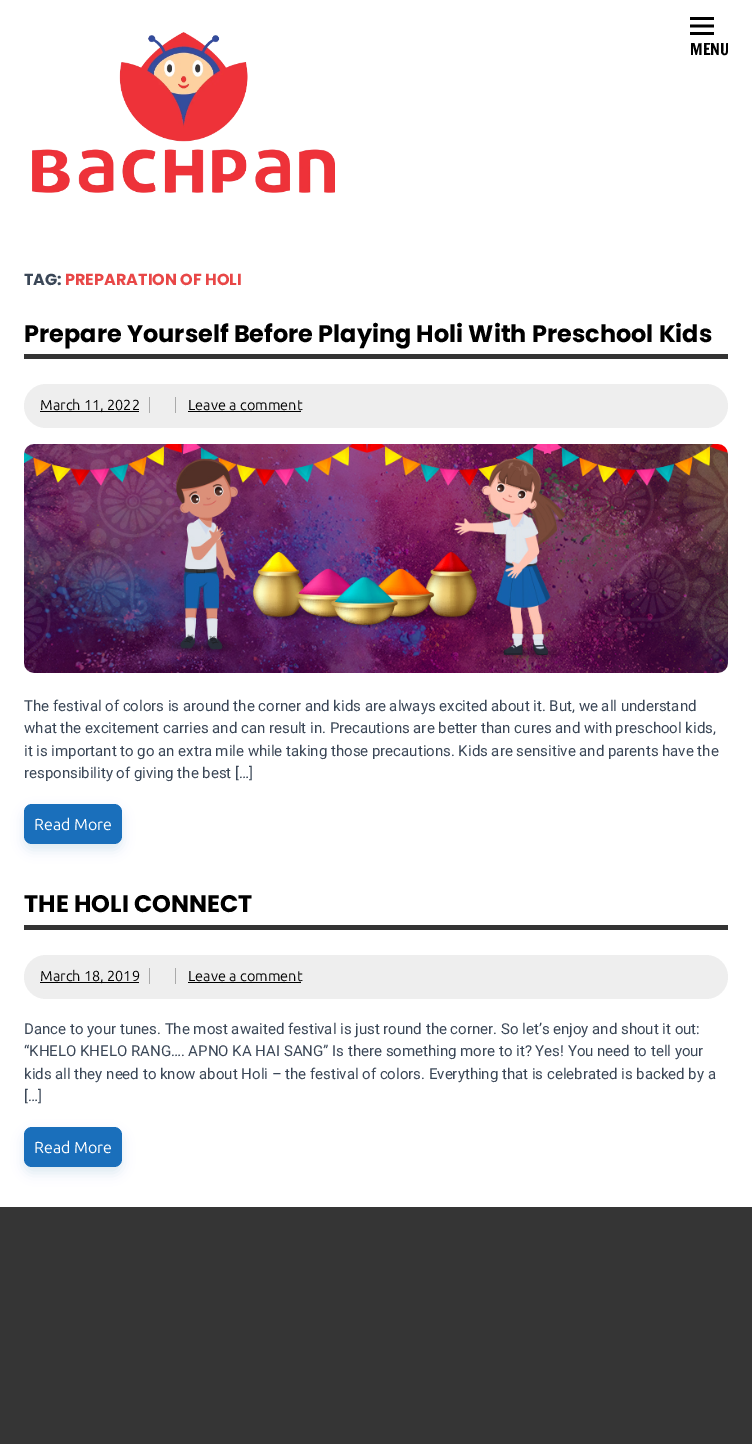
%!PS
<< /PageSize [752 1444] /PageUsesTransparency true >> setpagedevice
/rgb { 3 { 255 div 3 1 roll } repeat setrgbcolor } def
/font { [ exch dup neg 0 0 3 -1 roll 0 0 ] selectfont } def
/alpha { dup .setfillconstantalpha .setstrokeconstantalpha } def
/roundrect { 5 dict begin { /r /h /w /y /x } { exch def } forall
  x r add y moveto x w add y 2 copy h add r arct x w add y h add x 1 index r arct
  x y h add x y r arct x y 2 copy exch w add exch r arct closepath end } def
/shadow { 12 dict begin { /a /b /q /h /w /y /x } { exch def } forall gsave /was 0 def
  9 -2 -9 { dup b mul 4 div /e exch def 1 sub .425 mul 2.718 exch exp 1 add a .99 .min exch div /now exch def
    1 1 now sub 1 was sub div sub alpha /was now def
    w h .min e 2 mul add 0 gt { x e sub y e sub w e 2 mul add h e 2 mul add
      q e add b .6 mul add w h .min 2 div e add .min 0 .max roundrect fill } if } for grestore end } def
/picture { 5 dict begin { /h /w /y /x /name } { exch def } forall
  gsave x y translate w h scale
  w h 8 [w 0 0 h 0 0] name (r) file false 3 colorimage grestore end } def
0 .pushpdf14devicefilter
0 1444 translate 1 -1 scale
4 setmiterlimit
53 53 53 rgb
0 0 752 1444 rectfill
255 255 255 rgb
0 0 752 1207 rectfill
(img/1.rgb) 32 32 303 161 picture
(img/2.rgb) 690 17 24 18 picture
51 51 51 rgb
24 354 704 5 rectfill
238 238 238 rgb
24 384 704 44 22 roundrect fill
[
  [149 397 1 16 170 170 170]
  [40 411 99 1 0 0 0]
  [175 397 1 16 170 170 170]
  [188 411 113 1 0 0 0]
] { aload pop rgb rectfill } forall
(img/3.rgb) 24 444 704 229 picture
3 109 136 rgb
24 810 98 40 8 6 0.14 shadow
26 111 187 rgb
24 804 98 40 8 roundrect fill
51 51 51 rgb
24 925 704 5 rectfill
238 238 238 rgb
24 955 704 44 22 roundrect fill
[
  [149 968 1 16 170 170 170]
  [40 982 99 1 0 0 0]
  [175 968 1 16 170 170 170]
  [188 982 113 1 0 0 0]
] { aload pop rgb rectfill } forall
3 109 136 rgb
24 1133 98 40 8 6 0.14 shadow
26 111 187 rgb
24 1127 98 40 8 roundrect fill
/FrancoisOne-Regular 16 font
0 0 0 rgb
690 55 moveto (MENU) show
/Poppins-Bold 16 font
59 71 87 rgb
24 285 moveto (TAG:) show
232 71 71 rgb
65 285 moveto (PREPARATION OF HOLI) show
/Poppins-Bold 24 font
0 0 0 rgb
24 342 moveto (Prepare Yourself Before Playing Holi With Preschool Kids) show
/Ubuntu-Regular 14.5 font
40 410 moveto (March 11, 2022) show
188 410 moveto (Leave a comment) show
/Roboto-Regular 15 font
59 71 87 rgb
[
  [(The festival of colors is around the corner and kids are always excited about it. But, we all understand) 24 711]
  [(what the excitement carries and can result in. Precautions are better than cures and with preschool kids,) 24 733]
  [(it is important to go an extra mile while taking those precautions. Kids are sensitive and parents have the) 24 756]
  [(responsibility of giving the best […]) 24 778]
] { aload pop moveto show } forall
/Ubuntu-Regular 16 font
255 255 255 rgb
34 830 moveto (Read More) show
/Poppins-Bold 24 font
0 0 0 rgb
24 912 moveto (THE HOLI CONNECT) show
/Ubuntu-Regular 14.5 font
40 981 moveto (March 18, 2019) show
188 981 moveto (Leave a comment) show
/Roboto-Regular 15 font
59 71 87 rgb
[
  [(Dance to your tunes. The most awaited festival is just round the corner. So let’s enjoy and shout it out:) 24 1034]
  [(“KHELO KHELO RANG…. APNO KA HAI SANG” Is there something more to it? Yes! You need to tell your) 24 1056]
  [(kids all they need to know about Holi – the festival of colors. Everything that is celebrated is backed by a) 24 1079]
  [([…]) 24 1101]
] { aload pop moveto show } forall
/Ubuntu-Regular 16 font
255 255 255 rgb
34 1153 moveto (Read More) show
.poppdf14devicefilter showpage
